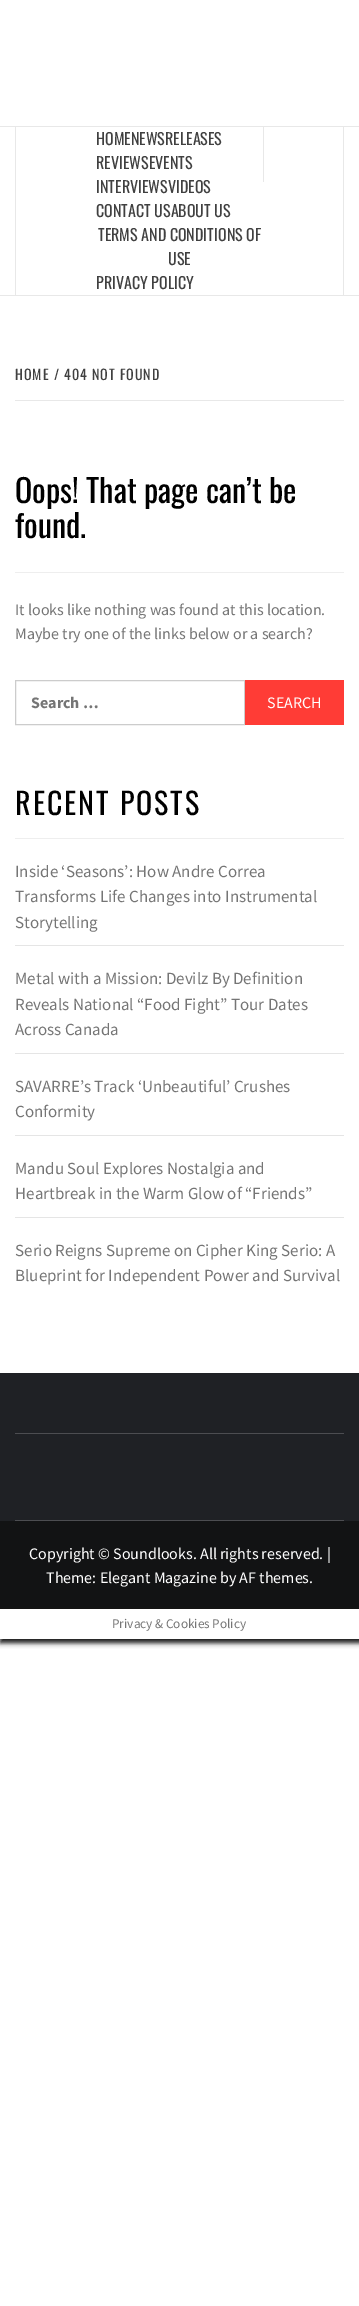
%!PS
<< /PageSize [359 2306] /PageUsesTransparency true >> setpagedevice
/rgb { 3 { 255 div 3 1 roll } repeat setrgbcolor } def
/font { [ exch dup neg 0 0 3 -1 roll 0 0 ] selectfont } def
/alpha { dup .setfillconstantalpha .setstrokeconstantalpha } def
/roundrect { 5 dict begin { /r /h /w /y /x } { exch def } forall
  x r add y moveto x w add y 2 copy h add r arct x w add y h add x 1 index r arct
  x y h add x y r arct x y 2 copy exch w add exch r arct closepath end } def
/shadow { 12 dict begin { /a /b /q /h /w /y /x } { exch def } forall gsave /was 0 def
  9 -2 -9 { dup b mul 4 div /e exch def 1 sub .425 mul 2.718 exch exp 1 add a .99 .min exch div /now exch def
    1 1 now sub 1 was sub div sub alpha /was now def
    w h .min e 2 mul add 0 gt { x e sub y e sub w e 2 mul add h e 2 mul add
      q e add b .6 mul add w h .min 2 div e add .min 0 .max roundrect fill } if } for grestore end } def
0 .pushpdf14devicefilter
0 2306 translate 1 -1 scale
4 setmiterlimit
255 255 255 rgb
0 0 359 2306 rectfill
[
  [0 126 359 1 232 232 232]
  [0 295 359 1 232 232 232]
  [343 127 1 168 232 232 232]
  [15 127 1 168 232 232 232]
  [263 127 1 55 232 232 232]
  [15 400 329 1 232 232 232]
  [15 572 329 1 238 238 238]
] { aload pop rgb rectfill } forall
204 204 204 rgb
15.5 680.5 229 44 rectstroke
[
  [245 680 99 45 255 60 54]
  [15 838 329 1 238 238 238]
  [15 945 329 1 229 229 229]
  [15 1053 329 1 229 229 229]
  [15 1135 329 1 229 229 229]
  [15 1217 329 1 229 229 229]
  [0 1373 359 148 31 33 37]
  [15 1433 329 1 76 77 81]
  [15 1520 329 1 76 77 81]
  [0 1521 359 88 18 19 20]
] { aload pop rgb rectfill } forall
gsave
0 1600 moveto 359 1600 lineto 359 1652 lineto 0 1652 lineto closepath 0 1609 moveto 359 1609 lineto 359 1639 lineto 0 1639 lineto closepath eoclip newpath
22 22 22 rgb
0 1609 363 34 0 2.5 1 shadow
grestore
/Oswald-Regular 16 font
64 64 64 rgb
[
  [(HOMENEWSRELEASES) 96 145]
  [(REVIEWSEVENTS) 96 169]
  [(INTERVIEWSVIDEOS) 96 193]
  [(CONTACT USABOUT US) 96 217]
  [(TERMS AND CONDITIONS OF) 98 241]
  [(USE) 168 265]
  [(PRIVACY POLICY) 96 289]
] { aload pop moveto show } forall
/Oswald-Regular 14 font
15 380 moveto 1 0 (HOME) ashow
54 380 moveto 1 0 (/) ashow
64 380 moveto 1 0 (404 NOT FOUND) ashow
/Oswald-Regular 32 font
0 0 0 rgb
15 503 moveto (Oops! That page can’t be) show
15 538 moveto (found.) show
/SourceSansPro-Regular 16 font
117 117 117 rgb
15 615 moveto (It looks like nothing was found at this location.) show
15 639 moveto (Maybe try one of the links below or a search?) show
/SourceSansPro-Bold 16 font
31 708 moveto (Search …) show
/SourceSansPro-Regular 16 font
255 255 255 rgb
267 708 moveto (SEARCH) show
/Oswald-Regular 30 font
0 0 0 rgb
15 815 moveto 2 0 (RECENT POSTS) ashow
/SourceSansPro-Regular 17 font
117 117 117 rgb
[
  [(Inside ‘Seasons’: How Andre Correa) 15 877]
  [(Transforms Life Changes into Instrumental) 15 902]
  [(Storytelling) 15 928]
  [(Metal with a Mission: Devilz By Definition) 15 984]
  [(Reveals National “Food Fight” Tour Dates) 15 1010]
  [(Across Canada) 15 1035]
  [(SAVARRE’s Track ‘Unbeautiful’ Crushes) 15 1092]
  [(Conformity) 15 1117]
  [(Mandu Soul Explores Nostalgia and) 15 1174]
  [(Heartbreak in the Warm Glow of “Friends”) 15 1199]
  [(Serio Reigns Supreme on Cipher King Serio: A) 15 1256]
  [(Blueprint for Independent Power and Survival) 15 1281]
] { aload pop moveto show } forall
/SourceSansPro-Regular 16 font
255 255 255 rgb
29 1559 moveto (Copyright © Soundlooks. All rights reserved. |) show
46 1583 moveto (Theme: Elegant Magazine by AF themes.) show
/SourceSansPro-Regular 13.25 font
117 117 117 rgb
112 1628 moveto (Privacy & Cookies Policy) show
.poppdf14devicefilter showpage
